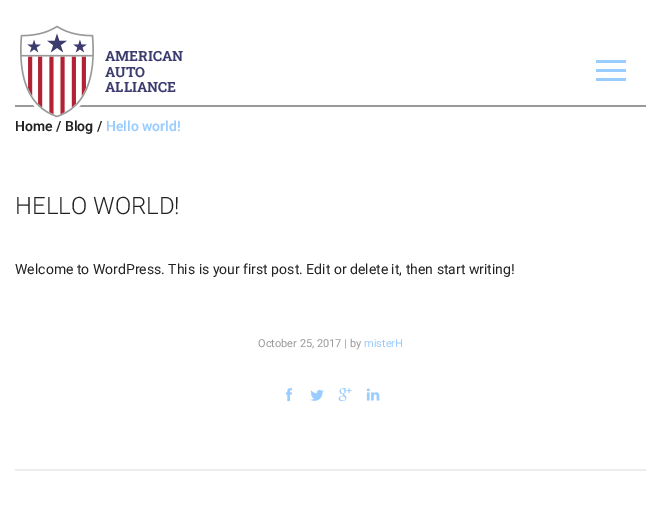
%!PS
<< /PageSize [661 506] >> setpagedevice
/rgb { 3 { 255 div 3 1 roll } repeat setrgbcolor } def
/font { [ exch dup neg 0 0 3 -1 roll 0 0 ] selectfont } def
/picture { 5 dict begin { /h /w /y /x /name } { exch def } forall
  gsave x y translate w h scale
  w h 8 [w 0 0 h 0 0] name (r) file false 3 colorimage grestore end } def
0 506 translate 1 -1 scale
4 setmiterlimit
255 255 255 rgb
0 0 661 506 rectfill
153 153 153 rgb
15 105 631 2 rectfill
(img/1.rgb) 20 25 74 93 picture
[
  [596 60 30 3 153 204 255]
  [596 69 30 3 153 204 255]
  [596 78 30 3 153 204 255]
] { aload pop rgb rectfill } forall
(img/2.rgb) 285 388 8 14 picture
(img/3.rgb) 310 389 14 12 picture
(img/4.rgb) 338 388 14 14 picture
(img/5.rgb) 366 388 14 13 picture
237 236 237 rgb
15 469 631 2 rectfill
/RobotoSlab-Bold 14 font
60 59 110 rgb
[
  [(AMERICAN) 105 61]
  [(AUTO) 105 77]
  [(ALLIANCE) 105 92]
] { aload pop moveto show } forall
/Roboto-SemiBold 14 font
34 34 34 rgb
15 131 moveto (Home / Blog /) show
153 204 255 rgb
106 131 moveto (Hello world!) show
/Roboto-Light 24 font
34 34 34 rgb
15 214 moveto (HELLO WORLD!) show
/Roboto-Regular 14 font
15 274 moveto (Welcome to WordPress. This is your first post. Edit or delete it, then start writing!) show
/Roboto-Regular 11 font
153 153 153 rgb
258 347 moveto (October 25, 2017 | by) show
153 204 255 rgb
364 347 moveto (misterH) show
showpage
